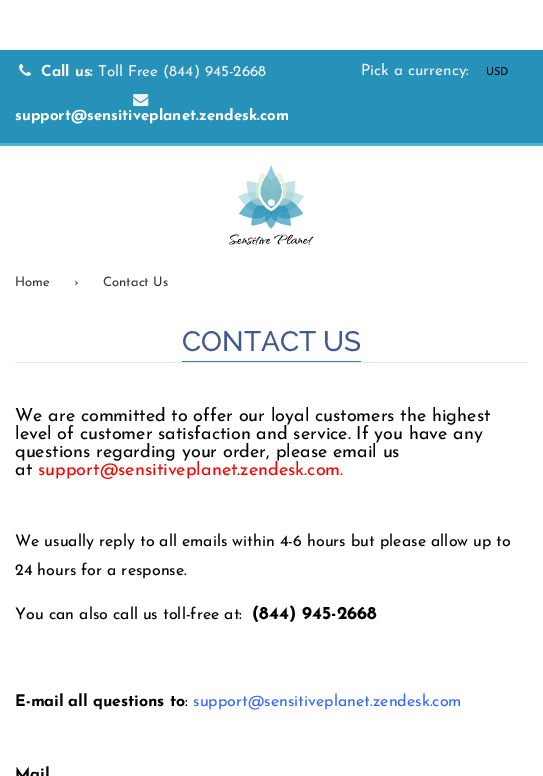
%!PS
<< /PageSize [543 776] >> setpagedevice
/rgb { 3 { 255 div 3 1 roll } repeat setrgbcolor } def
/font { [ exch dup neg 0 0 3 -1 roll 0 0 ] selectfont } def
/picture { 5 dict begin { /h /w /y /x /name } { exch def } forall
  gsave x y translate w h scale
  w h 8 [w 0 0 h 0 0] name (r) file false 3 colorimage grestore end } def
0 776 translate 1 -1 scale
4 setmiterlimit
255 255 255 rgb
0 0 543 776 rectfill
39 146 185 rgb
0 50 543 93 rectfill
73 185 202 rgb
0 143 543 3 rectfill
(img/1.rgb) 19 64 12 12 picture
(img/2.rgb) 133 94 16 13 picture
(img/3.rgb) 229 165 85 81 picture
230 230 230 rgb
15 362 513 1 rectfill
39 146 185 rgb
182 361 179 1 rectfill
/JosefinSans-Bold 15.25 font
242 242 242 rgb
41 76 moveto (Call us:) show
/JosefinSans-Regular 15.25 font
98 76 moveto (Toll Free \(844\) 945-2668) show
/JosefinSans-Bold 15.25 font
255 255 255 rgb
15 120 moveto (support@sensitiveplanet.zendesk.com) show
/JosefinSans-Regular 15.5 font
242 242 242 rgb
361 75 moveto (Pick a currency:) show
/JosefinSans-Regular 11 font
0 0 0 rgb
486 75 moveto (USD) show
/JosefinSans-Regular 13 font
51 51 51 rgb
[
  [(Home) 15 286]
  [(›) 74 286]
  [(Contact Us) 103 286]
] { aload pop moveto show } forall
/Raleway-Medium 28 font
65 91 144 rgb
182 351 moveto (CONTACT US) show
/JosefinSans-Regular 18 font
0 0 0 rgb
[
  [(We are committed to offer our loyal customers the highest) 15 421]
  [(level of customer satisfaction and service. If you have any) 15 439]
  [(questions regarding your order, please email us) 15 457]
  [(at) 15 475]
] { aload pop moveto show } forall
255 0 0 rgb
38 475 moveto (support@sensitiveplanet.zendesk.com.) show
/JosefinSans-Regular 16 font
0 0 0 rgb
[
  [(We usually reply to all emails within 4-6 hours but please allow up to) 15 546]
  [(24 hours for a response.) 15 575]
  [(You can also call us toll-free at:) 15 619]
] { aload pop moveto show } forall
/JosefinSans-Bold 18 font
252 619 moveto (\(844\) 945-2668) show
/JosefinSans-Bold 16 font
15 706 moveto (E-mail all questions to) show
/JosefinSans-Regular 16 font
185 706 moveto (:) show
51 102 255 rgb
193 706 moveto (support@sensitiveplanet.zendesk.com) show
/JosefinSans-Bold 16 font
0 0 0 rgb
15 779 moveto (Mail) show
showpage
